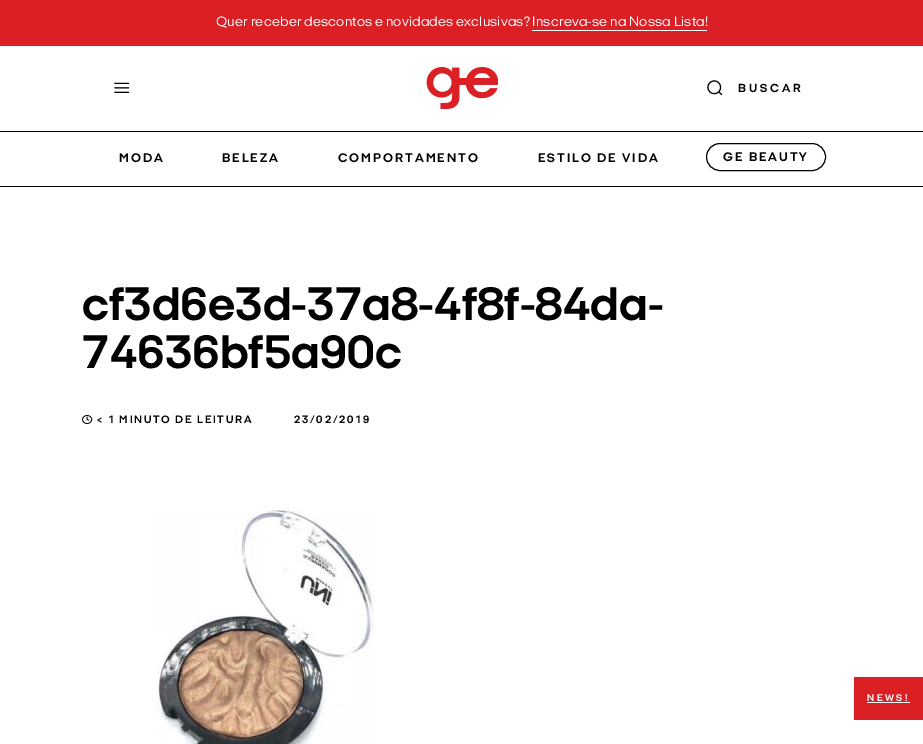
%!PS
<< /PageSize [923 744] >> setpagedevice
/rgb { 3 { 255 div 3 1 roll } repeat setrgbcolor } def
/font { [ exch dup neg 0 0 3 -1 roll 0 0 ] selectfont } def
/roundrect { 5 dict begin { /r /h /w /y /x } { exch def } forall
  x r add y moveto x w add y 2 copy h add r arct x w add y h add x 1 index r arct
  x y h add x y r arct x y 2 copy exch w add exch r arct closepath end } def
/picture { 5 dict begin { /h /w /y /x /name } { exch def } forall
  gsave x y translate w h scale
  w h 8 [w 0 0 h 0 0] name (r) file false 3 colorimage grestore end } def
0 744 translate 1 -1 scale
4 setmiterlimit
255 255 255 rgb
0 0 923 744 rectfill
218 31 37 rgb
0 0 923 46 rectfill
255 255 255 rgb
532 30 175 1 rectfill
(img/1.rgb) 114 82 16 11 picture
(img/2.rgb) 426 67 72 42 picture
(img/3.rgb) 707 80 16 16 picture
0 0 0 rgb
0 131 923 1 rectfill
0 186 923 1 rectfill
706.5 143.5 119 27 13.5 roundrect stroke
(img/4.rgb) 82 415 11 9 picture
(img/5.rgb) 154 510 222 234 picture
218 31 37 rgb
854 677 69 43 rectfill
255 255 255 rgb
867 702 43 1 rectfill
/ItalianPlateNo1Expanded-Regular 14 font
216 26 moveto 0.15 0 (Quer receber descontos e novidades exclusivas? Inscreva-se na Nossa Lista!) ashow
/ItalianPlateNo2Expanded-Bold 12 font
0 0 0 rgb
738 92 moveto 3 0 (BUSCAR) ashow
/ItalianPlateNo1Expanded-Bold 12.75 font
119 162 moveto 2 0 (MODA) ashow
222 162 moveto 2 0 (BELEZA) ashow
338 162 moveto 2 0 (COMPORTAMENTO) ashow
538 162 moveto 2 0 (ESTILO DE VIDA) ashow
723 161 moveto 2 0 (GE BEAUTY) ashow
/ItalianPlateNo2Expanded-Bold 48 font
82 320 moveto (cf3d6e3d-37a8-4f8f-84da-) show
82 368 moveto (74636bf5a90c) show
/ItalianPlateNo2Expanded-Bold 11 font
97 423 moveto 1.75 0 (< 1 MINUTO DE LEITURA) ashow
294 423 moveto 1.75 0 (23/02/2019) ashow
/ItalianPlateNo2Expanded-Bold 10 font
255 255 255 rgb
867 701 moveto 2.5 0 (NEWS!) ashow
showpage
